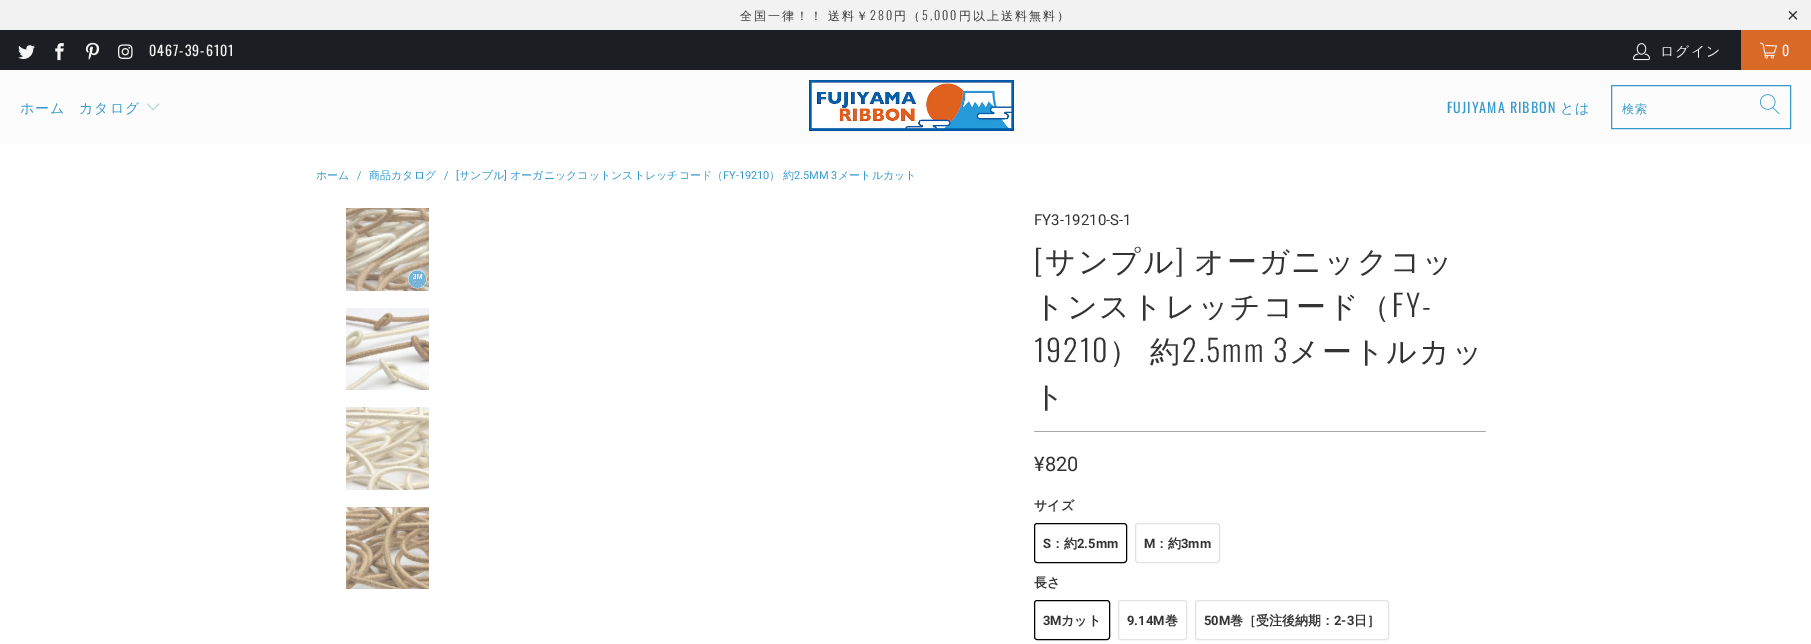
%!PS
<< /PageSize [1811 644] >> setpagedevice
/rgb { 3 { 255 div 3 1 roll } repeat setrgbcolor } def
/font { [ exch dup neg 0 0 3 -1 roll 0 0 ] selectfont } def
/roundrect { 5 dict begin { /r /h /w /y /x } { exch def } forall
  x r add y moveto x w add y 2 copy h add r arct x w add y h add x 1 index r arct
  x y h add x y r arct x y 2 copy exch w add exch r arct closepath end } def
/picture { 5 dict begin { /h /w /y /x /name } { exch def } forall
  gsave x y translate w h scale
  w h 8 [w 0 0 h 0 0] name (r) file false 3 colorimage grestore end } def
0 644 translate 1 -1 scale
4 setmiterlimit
255 255 255 rgb
0 0 1811 644 rectfill
242 242 242 rgb
0 0 1811 30 rectfill
27 31 35 rgb
0 30 1741 40 rectfill
(img/1.rgb) 18 45 17 14 picture
(img/2.rgb) 55 43 9 18 picture
(img/3.rgb) 85 42 15 18 picture
(img/4.rgb) 118 44 15 15 picture
(img/5.rgb) 1633 43 17 18 picture
217 105 38 rgb
1741 30 70 40 rectfill
(img/6.rgb) 1760 42 17 17 picture
252 252 252 rgb
0 70 1811 74 rectfill
(img/7.rgb) 147 103 12 7 picture
(img/8.rgb) 809 80 205 51 picture
54 154 205 rgb
1611.5 85.5 179 43 rectstroke
(img/9.rgb) 1760 94 20 21 picture
(img/10.rgb) 346 208 83 83 picture
(img/11.rgb) 346 308 83 82 picture
(img/12.rgb) 346 407 83 83 picture
(img/13.rgb) 346 507 83 82 picture
170 170 170 rgb
1034 431 452 1 rectfill
0 0 0 rgb
1034.5 523.5 92 39 2.5 roundrect stroke
226 226 226 rgb
1135.5 523.5 84 39 2.5 roundrect stroke
0 0 0 rgb
1034.5 600.5 75 39 2.5 roundrect stroke
226 226 226 rgb
1118.5 600.5 68 39 2.5 roundrect stroke
1195.5 600.5 193 39 2.5 roundrect stroke
/WenQuanYiZenHei-Medium 12 font
51 51 51 rgb
740 20 moveto 2 0 (全国一律！！) ashow
828 20 moveto 2 0 (送料￥) ashow
/Oswald-Light 12 font
870 20 moveto 2 0 (280) ashow
/WenQuanYiZenHei-Medium 12 font
894 20 moveto 2 0 (円（) ashow
/Oswald-Light 12 font
922 20 moveto 2 0 (5,000) ashow
/WenQuanYiZenHei-Medium 12 font
959 20 moveto 2 0 (円以上送料無料）) ashow
/LiberationSans-Regular 20 font
1787 22 moveto 2 0 (×) ashow
/Oswald-Regular 14 font
244 244 244 rgb
149 56 moveto 1 0 (0467-39-6101) ashow
/WenQuanYiZenHei-Medium 14 font
1660 56 moveto 1 0 (ログイン) ashow
/Oswald-Regular 14 font
1782 56 moveto 1 0 (0) ashow
/WenQuanYiZenHei-Medium 14 font
54 154 205 rgb
20 113 moveto 1 0 (ホーム) ashow
79 113 moveto 1 0 (カタログ) ashow
/Oswald-Regular 14 font
1447 113 moveto 1 0 (FUJIYAMA RIBBON) ashow
/WenQuanYiZenHei-Medium 14 font
1560 113 moveto 1 0 (とは) ashow
/WenQuanYiZenHei-Medium 12 font
1622 113 moveto 1 0 (検索) ashow
/WenQuanYiZenHei-Medium 11 font
316 179 moveto (ホーム) show
/Roboto-Regular 11 font
357 179 moveto (/) show
/WenQuanYiZenHei-Medium 11 font
369 179 moveto (商品カタログ) show
/Roboto-Regular 11 font
444 179 moveto (/) show
456 179 moveto ([) show
/WenQuanYiZenHei-Medium 11 font
459 179 moveto (サンプル) show
/Roboto-Regular 11 font
504 179 moveto (]) show
/WenQuanYiZenHei-Medium 11 font
510 179 moveto (オーガニックコットンストレッチコード（) show
/Roboto-Regular 11 font
723 179 moveto (FY-19210) show
/WenQuanYiZenHei-Medium 11 font
769 179 moveto (）) show
783 179 moveto (約) show
/Roboto-Regular 11 font
794 179 moveto (2.5MM 3) show
/WenQuanYiZenHei-Medium 11 font
838 179 moveto (メートルカット) show
/Roboto-Regular 15 font
51 51 51 rgb
1034 225 moveto (FY3-19210-S-1) show
/Oswald-Light 30 font
1034 272 moveto 2 0 ([) ashow
/WenQuanYiZenHei-Medium 30 font
1045 272 moveto 2 0 (サンプル) ashow
/Oswald-Light 30 font
1175 272 moveto 2 0 (]) ashow
/WenQuanYiZenHei-Medium 30 font
1194 272 moveto 2 0 (オーガニックコッ) ashow
1034 317 moveto 2 0 (トンストレッチコード（) ashow
/Oswald-Light 30 font
1392 317 moveto 2 0 (FY-) ashow
1034 362 moveto 2 0 (19210) ashow
/WenQuanYiZenHei-Medium 30 font
1109 362 moveto 2 0 (）) ashow
1150 362 moveto 2 0 (約) ashow
/Oswald-Light 30 font
1182 362 moveto 2 0 (2.5mm 3) ashow
/WenQuanYiZenHei-Medium 30 font
1289 362 moveto 2 0 (メートルカッ) ashow
1034 407 moveto 2 0 (ト) ashow
/Roboto-Regular 20 font
1034 471 moveto (¥820) show
/WenQuanYiZenHei-Bold 13 font
1034 510 moveto (サイズ) show
/Roboto-Bold 13 font
1043 548 moveto (S) show
/WenQuanYiZenHei-Bold 13 font
1051 548 moveto (：約) show
/Roboto-Bold 13 font
1077 548 moveto (2.5mm) show
1144 548 moveto (M) show
/WenQuanYiZenHei-Bold 13 font
1155 548 moveto (：約) show
/Roboto-Bold 13 font
1181 548 moveto (3mm) show
/WenQuanYiZenHei-Bold 13 font
1034 587 moveto (長さ) show
/Roboto-Bold 13 font
1043 625 moveto (3M) show
/WenQuanYiZenHei-Bold 13 font
1061 625 moveto (カット) show
/Roboto-Bold 13 font
1127 625 moveto (9.14M) show
/WenQuanYiZenHei-Bold 13 font
1165 625 moveto (巻) show
/Roboto-Bold 13 font
1204 625 moveto (50M) show
/WenQuanYiZenHei-Bold 13 font
1230 625 moveto (巻［受注後納期：) show
/Roboto-Bold 13 font
1334 625 moveto (2-3) show
/WenQuanYiZenHei-Bold 13 font
1354 625 moveto (日］) show
showpage
